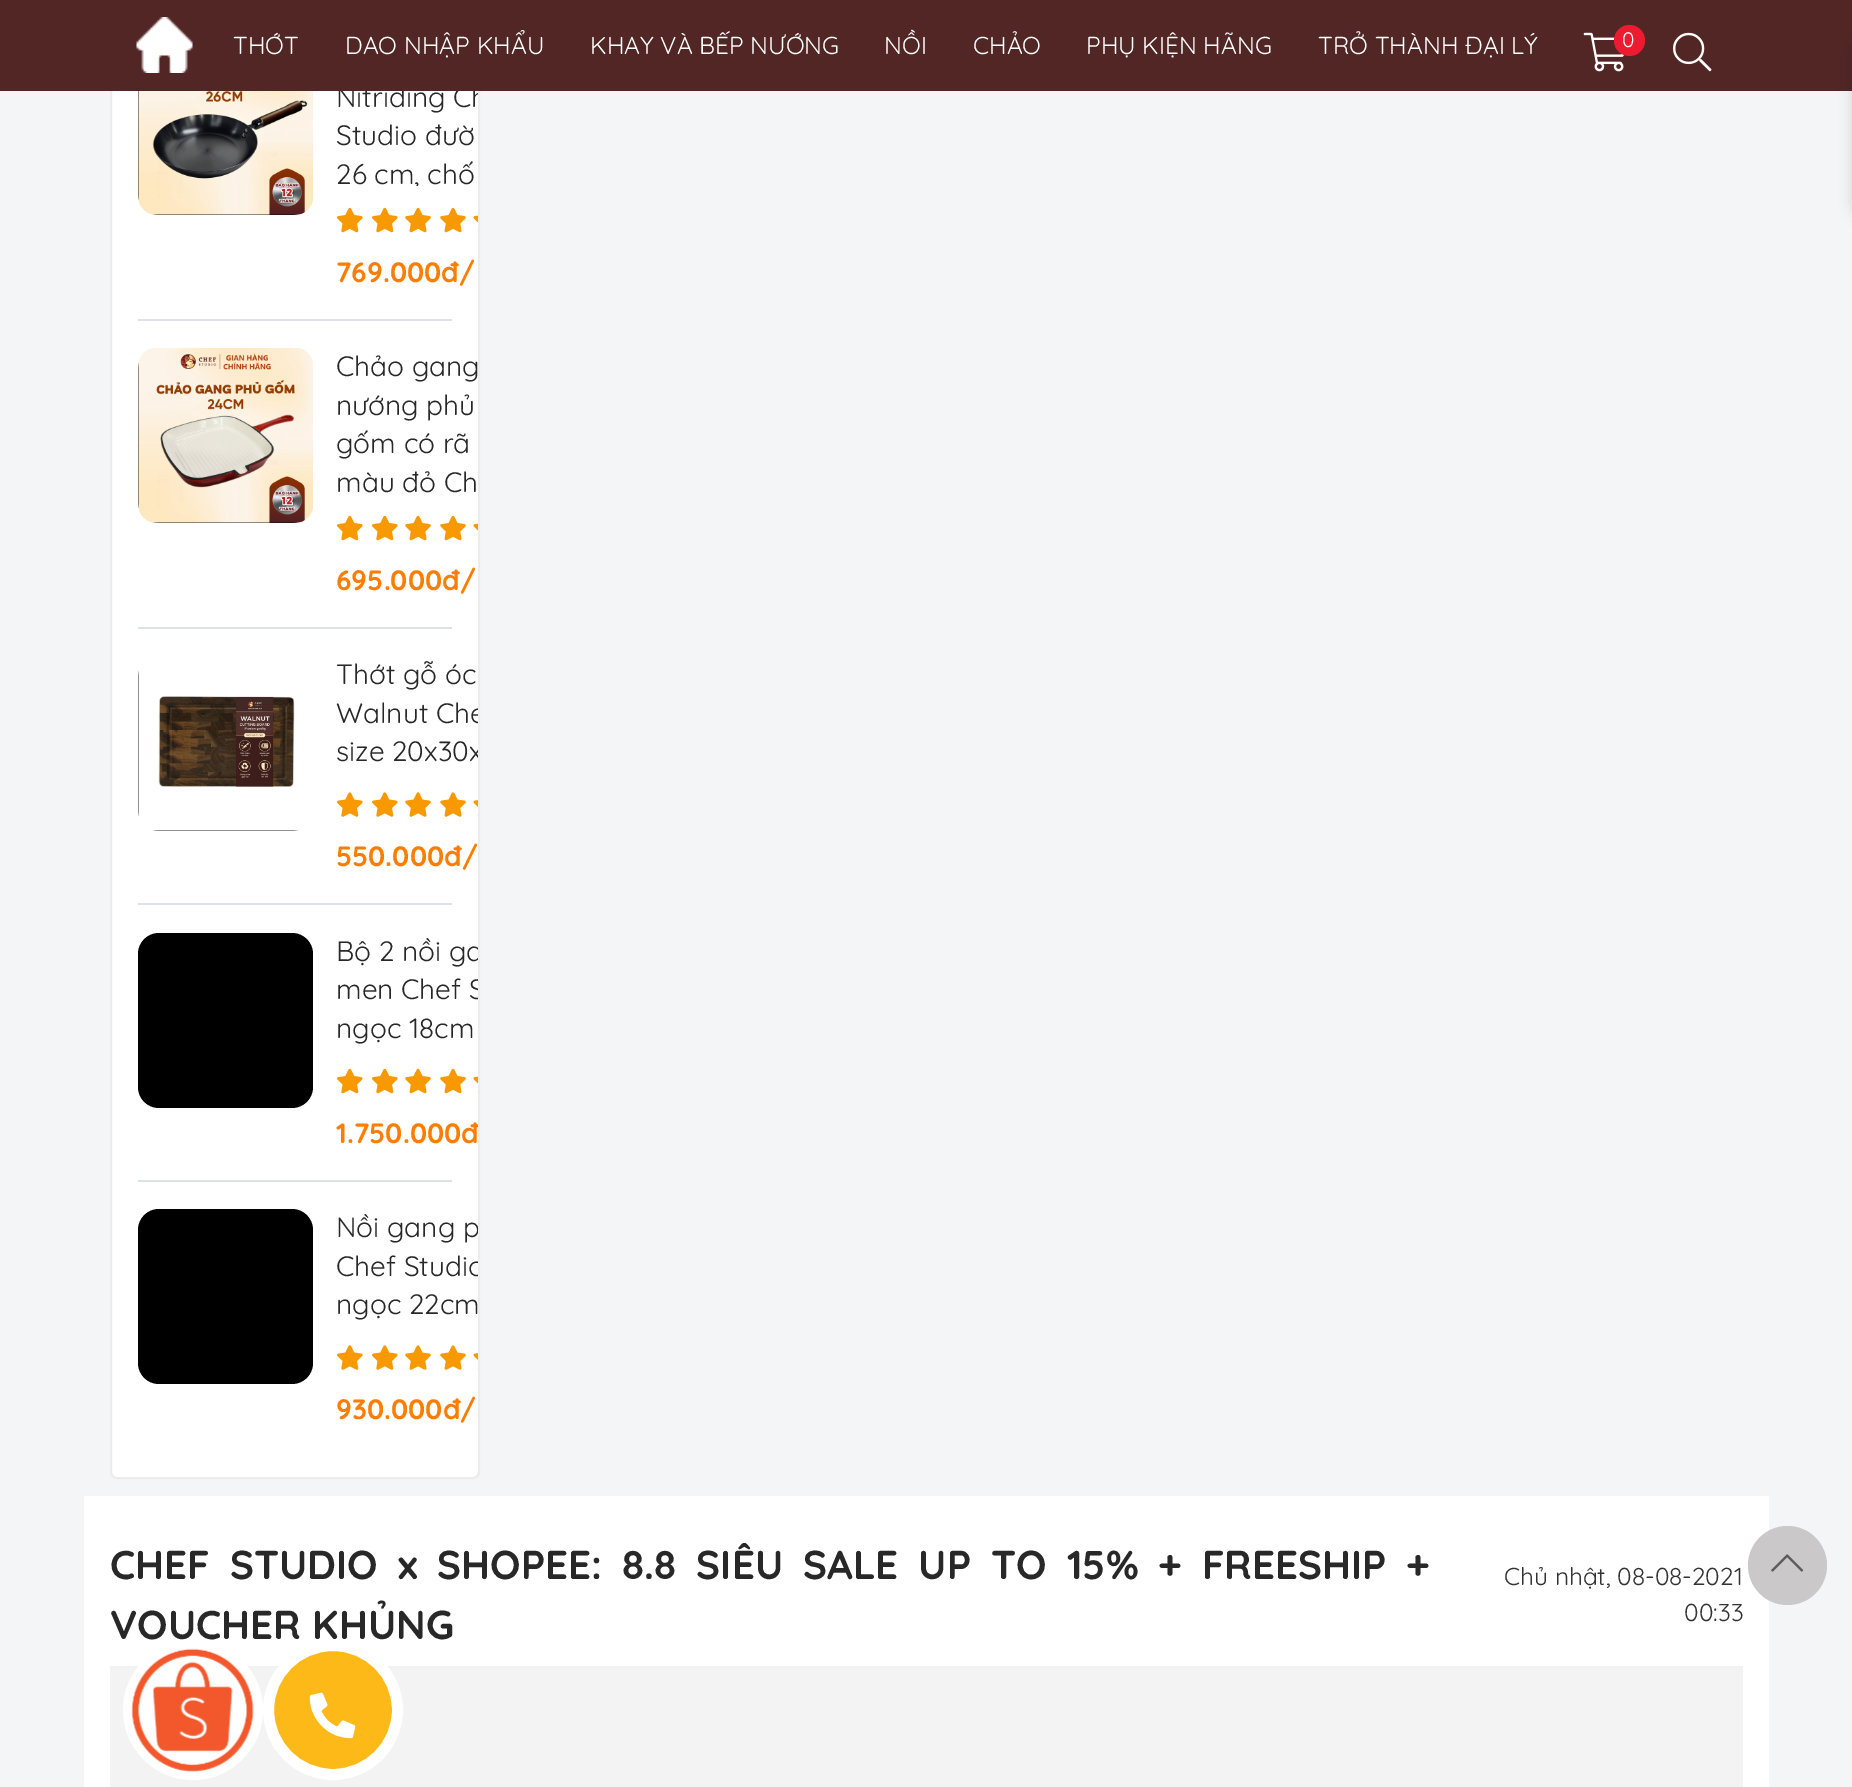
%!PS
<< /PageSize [1852 1787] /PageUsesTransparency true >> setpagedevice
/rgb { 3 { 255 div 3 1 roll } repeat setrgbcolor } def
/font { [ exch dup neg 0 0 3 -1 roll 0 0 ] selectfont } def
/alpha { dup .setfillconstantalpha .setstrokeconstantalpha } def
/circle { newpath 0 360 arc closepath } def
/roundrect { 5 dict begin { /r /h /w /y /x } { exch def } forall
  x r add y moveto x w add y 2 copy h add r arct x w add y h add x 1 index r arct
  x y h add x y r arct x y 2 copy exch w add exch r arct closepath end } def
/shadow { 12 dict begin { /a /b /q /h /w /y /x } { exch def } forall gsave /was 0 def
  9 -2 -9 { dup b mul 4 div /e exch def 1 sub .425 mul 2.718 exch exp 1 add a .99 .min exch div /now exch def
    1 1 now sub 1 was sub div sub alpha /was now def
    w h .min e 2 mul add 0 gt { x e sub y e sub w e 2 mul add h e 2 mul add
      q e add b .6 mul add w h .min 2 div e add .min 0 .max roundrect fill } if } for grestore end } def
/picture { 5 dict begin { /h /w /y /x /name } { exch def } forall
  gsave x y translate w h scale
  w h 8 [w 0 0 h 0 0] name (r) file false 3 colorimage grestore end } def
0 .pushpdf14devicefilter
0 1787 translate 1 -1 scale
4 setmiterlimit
243 245 246 rgb
0 0 1852 1787 rectfill
255 255 255 rgb
111 -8 368 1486 6 roundrect gsave fill grestore
237 236 237 rgb
2 setlinewidth
stroke
222 226 230 rgb
138 319 314 2 rectfill
0 0 0 rgb
138 40 175 175 21 roundrect fill
(img/4.rgb) 138 91 176 124 picture
(img/5.rgb) 337 207 26 26 picture
(img/5.rgb) 372 207 26 26 picture
(img/6.rgb) 405 207 26 26 picture
(img/6.rgb) 440 207 26 26 picture
(img/7.rgb) 473 215 5 17 picture
222 226 230 rgb
138 627 314 2 rectfill
0 0 0 rgb
138 348 175 175 21 roundrect fill
(img/8.rgb) 138 347 176 176 picture
(img/5.rgb) 337 515 26 26 picture
(img/5.rgb) 372 515 26 26 picture
(img/6.rgb) 405 515 26 26 picture
(img/6.rgb) 440 515 26 26 picture
(img/7.rgb) 473 523 5 17 picture
222 226 230 rgb
138 903 314 2 rectfill
0 0 0 rgb
138 656 175 175 21 roundrect fill
(img/9.rgb) 138 656 175 175 picture
(img/10.rgb) 337 792 26 25 picture
(img/10.rgb) 372 792 26 25 picture
(img/11.rgb) 405 792 26 25 picture
(img/11.rgb) 440 792 26 25 picture
(img/12.rgb) 473 800 5 16 picture
222 226 230 rgb
138 1180 314 2 rectfill
0 0 0 rgb
138 933 175 175 21 roundrect fill
(img/5.rgb) 337 1068 26 26 picture
(img/5.rgb) 372 1068 26 26 picture
(img/6.rgb) 405 1068 26 26 picture
(img/6.rgb) 440 1068 26 26 picture
(img/7.rgb) 473 1076 5 17 picture
138 1209 175 175 21 roundrect fill
(img/10.rgb) 337 1345 26 25 picture
(img/10.rgb) 372 1345 26 25 picture
(img/11.rgb) 405 1345 26 25 picture
(img/11.rgb) 440 1345 26 25 picture
(img/12.rgb) 473 1353 5 16 picture
[
  [84 1496 1685 291 255 255 255]
  [110 1666 1633 2 243 241 242]
  [110 1668 1633 119 243 243 243]
] { aload pop rgb rectfill } forall
202 200 200 rgb
1787.5 1565.5 39.5 circle fill
(img/13.rgb) 1771 1554 33 18 picture
255 255 255 rgb
193 1710 70 circle fill
(img/14.rgb) 131 1648 123 124 picture
253 185 24 rgb
333 1710 64.5 circle gsave fill grestore
255 255 255 rgb
11 setlinewidth
stroke
(img/15.rgb) 309 1692 47 47 picture
gsave
112 -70 366 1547 5 roundrect clip newpath
/Quicksand-Regular 28 font
40 40 40 rgb
336 107 moveto (Nitriding Ch) show
grestore
81 38 37 rgb
0 0 1852 91 rectfill
0 0 0 rgb
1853 35 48 186 28 7 0.15 shadow
(img/3.rgb) 1673 32 39 40 picture
(img/2.rgb) 1583 32 41 40 picture
237 27 47 rgb
1629.5 40.5 15.5 circle fill
/Quicksand-Regular 21 font
255 255 255 rgb
1622 47 moveto (0) show
/Quicksand-Regular 24.5 font
[
  [(TRỞ THÀNH ĐẠI LÝ) 1318 54]
  [(PHỤ KIỆN HÃNG) 1086 54]
  [(CHẢO) 973 54]
  [(NỒI) 884 54]
  [(KHAY VÀ BẾP NƯỚNG) 590 54]
  [(DAO NHẬP KHẨU) 345 54]
  [(THỚT) 233 54]
] { aload pop moveto show } forall
(img/1.rgb) 136 17 57 56 picture
/Quicksand-Regular 28 font
40 40 40 rgb
336 145 moveto (Studio đườ) show
gsave
336 39 263 147 rectclip
336 184 moveto (26 cm, chố) show
grestore
/Quicksand-Bold 28 font
251 125 2 rgb
336 282 moveto (769.000đ/) show
/Quicksand-Regular 28 font
40 40 40 rgb
[
  [(Chảo gang) 336 376]
  [(nướng phủ) 336 415]
  [(gốm có rã) 336 453]
  [(màu đỏ Ch) 336 492]
] { aload pop moveto show } forall
/Quicksand-Bold 28 font
251 125 2 rgb
336 590 moveto (695.000đ/) show
/Quicksand-Regular 28 font
40 40 40 rgb
336 684 moveto (Thớt gỗ óc) show
gsave
112 -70 366 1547 5 roundrect clip newpath
336 723 moveto (Walnut Che) show
336 761 moveto (size 20x30x) show
grestore
/Quicksand-Bold 28 font
251 125 2 rgb
336 866 moveto (550.000đ/) show
gsave
112 -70 366 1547 5 roundrect clip newpath
/Quicksand-Regular 28 font
40 40 40 rgb
336 961 moveto (Bộ 2 nồi ga) show
336 999 moveto (men Chef S) show
grestore
/Quicksand-Regular 28 font
40 40 40 rgb
336 1038 moveto (ngọc 18cm) show
gsave
112 -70 366 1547 5 roundrect clip newpath
/Quicksand-Bold 28 font
251 125 2 rgb
336 1143 moveto (1.750.000đ) show
/Quicksand-Regular 28 font
40 40 40 rgb
336 1237 moveto (Nồi gang p) show
336 1276 moveto (Chef Studio) show
grestore
336 1314 moveto (ngọc 22cm) show
/Quicksand-Bold 28 font
251 125 2 rgb
336 1419 moveto (930.000đ/) show
/Quicksand-Bold 40.25 font
40 40 40 rgb
110 1579 moveto 8.75 0 32 (CHEF STUDIO x SHOPEE: 8.8 SIÊU SALE UP TO 15% + FREESHIP +) widthshow
110 1639 moveto (VOUCHER KHỦNG) show
/Quicksand-Regular 24.5 font
51 51 51 rgb
1504 1585 moveto (Chủ nhật, 08-08-2021) show
1684 1621 moveto (00:33) show
.poppdf14devicefilter showpage
